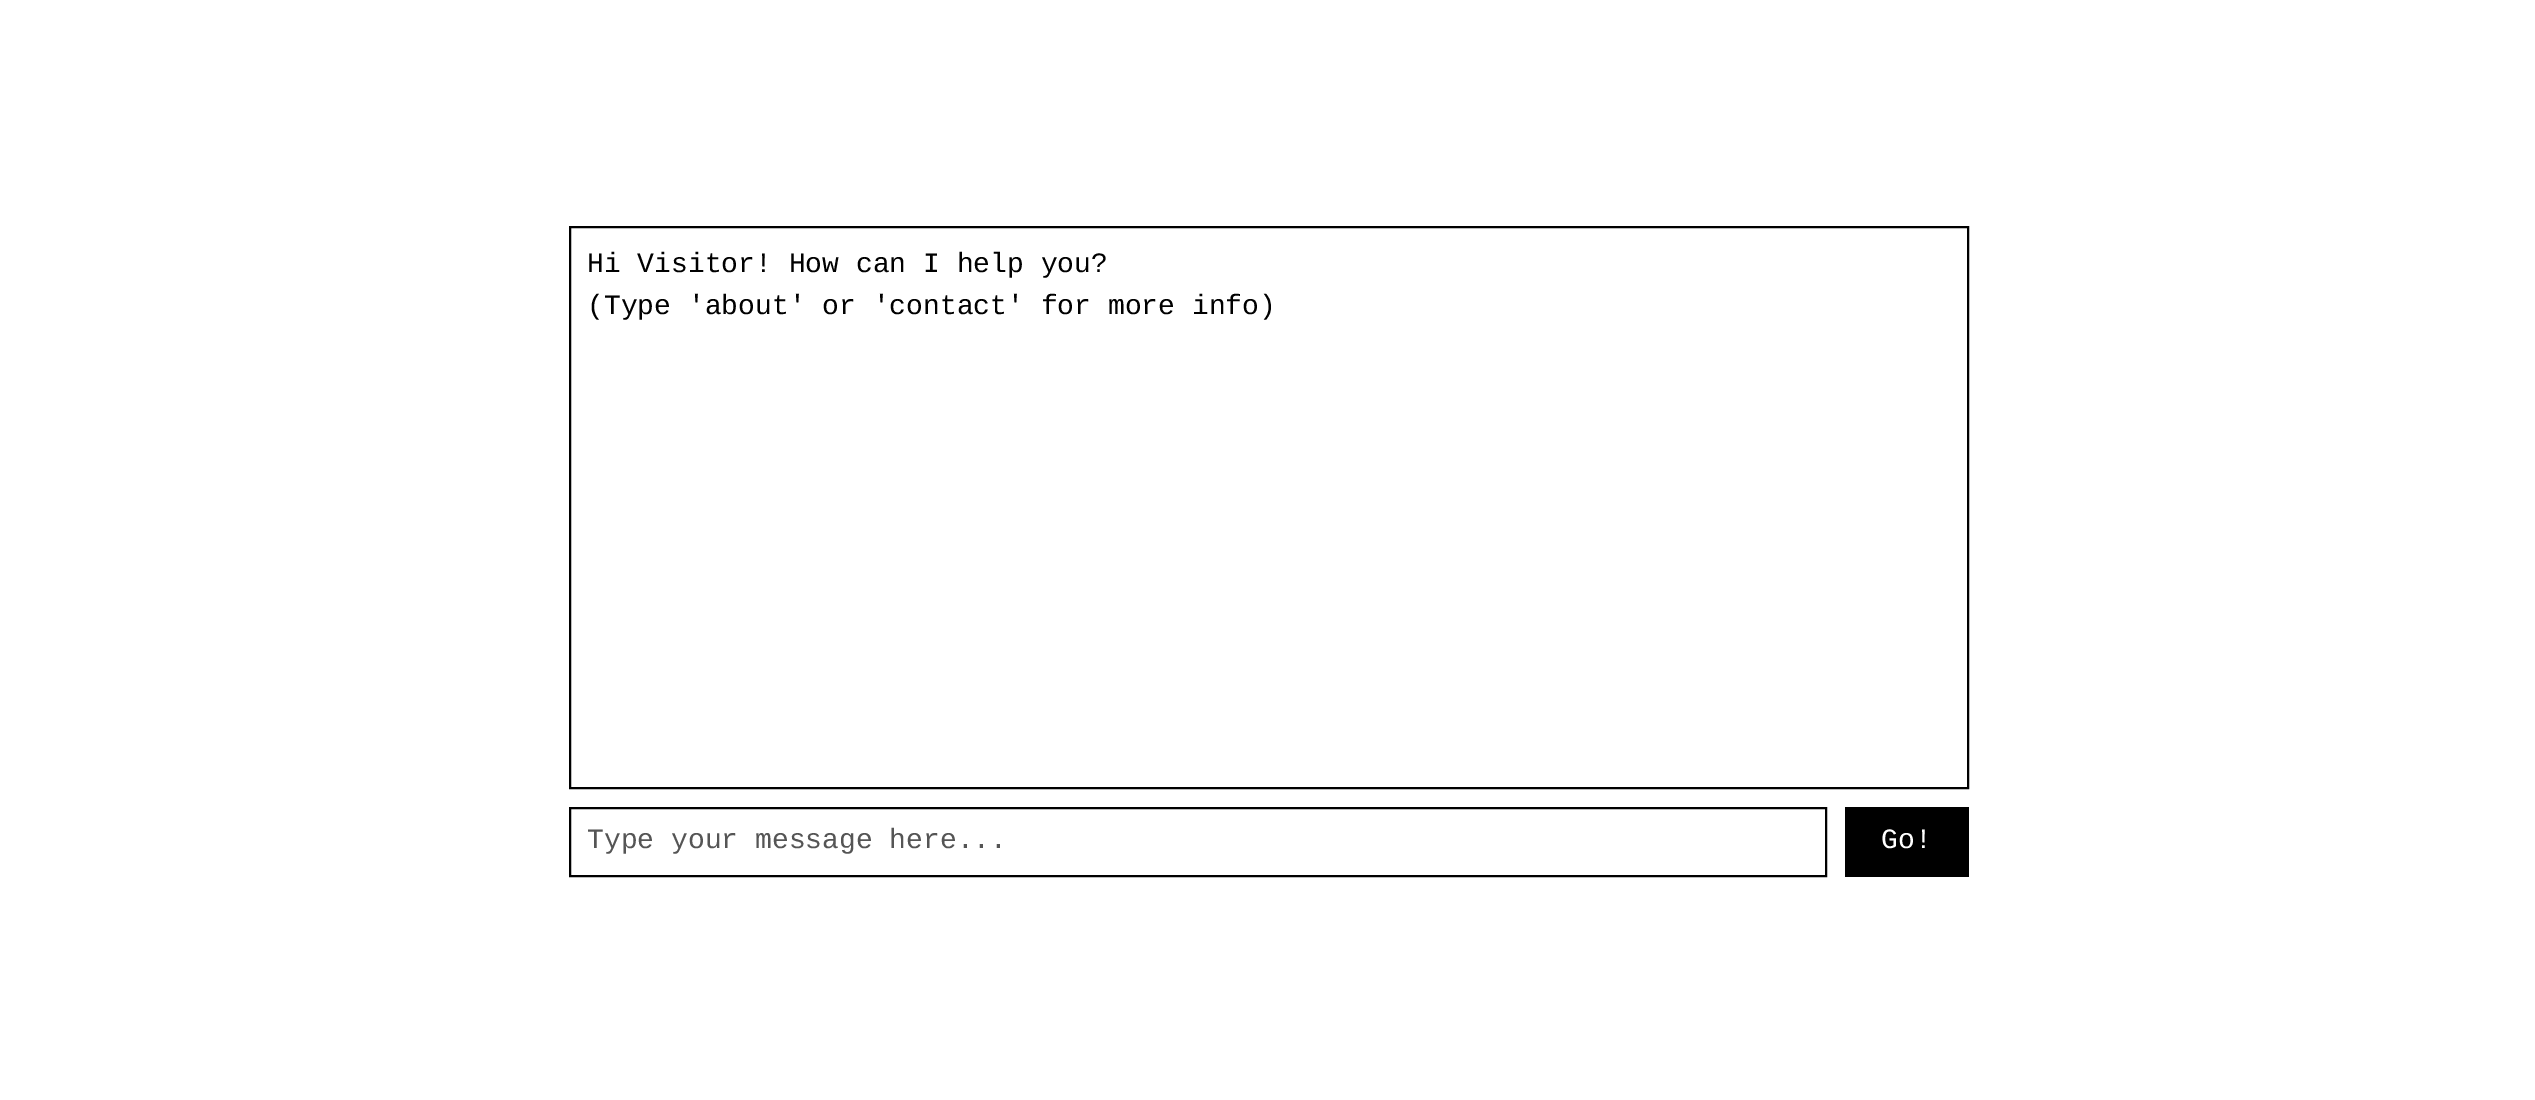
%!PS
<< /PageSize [2535 1100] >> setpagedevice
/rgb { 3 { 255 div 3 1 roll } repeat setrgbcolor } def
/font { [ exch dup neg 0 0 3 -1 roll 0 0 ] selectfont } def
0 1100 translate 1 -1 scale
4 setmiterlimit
255 255 255 rgb
0 0 2535 1100 rectfill
0 0 0 rgb
2 setlinewidth
570 227 1398 561 rectstroke
570 808 1256 68 rectstroke
1845 807 124 70 rectfill
/LiberationMono-Regular 28 font
587 272 moveto (Hi Visitor! How can I help you?) show
587 314 moveto (\(Type 'about' or 'contact' for more info\)) show
85 85 85 rgb
587 848 moveto (Type your message here...) show
255 255 255 rgb
1881 848 moveto (Go!) show
showpage
